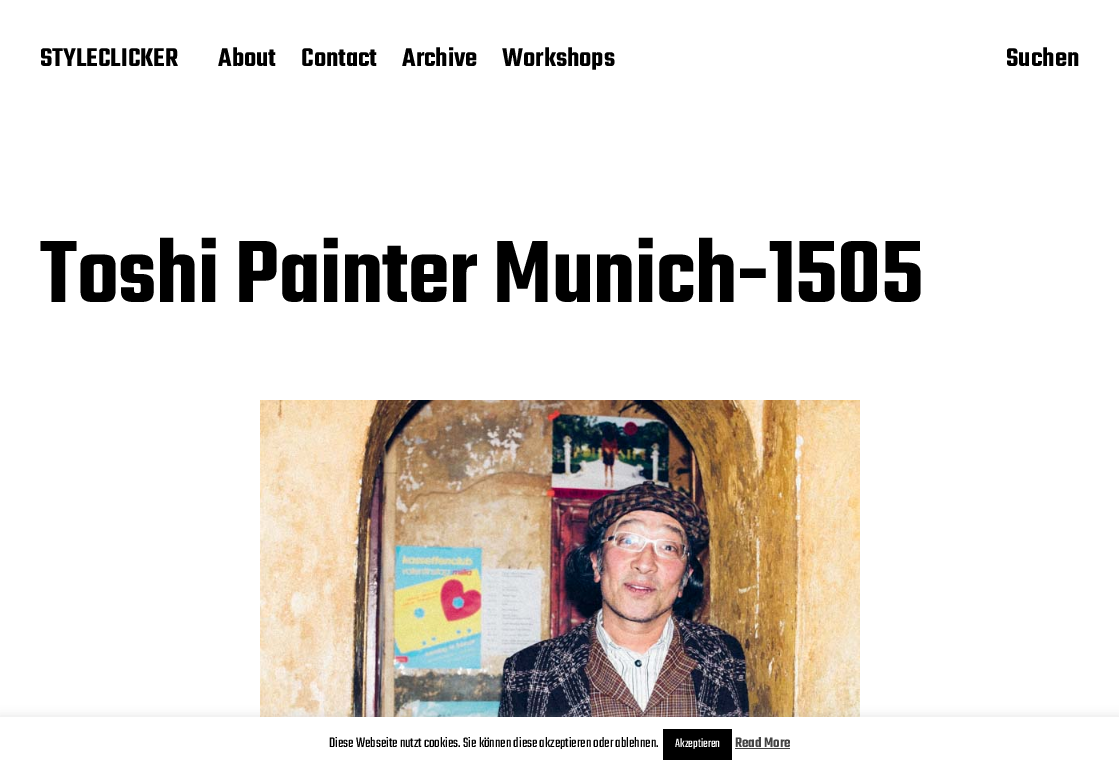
%!PS
<< /PageSize [1119 772] /PageUsesTransparency true >> setpagedevice
/rgb { 3 { 255 div 3 1 roll } repeat setrgbcolor } def
/font { [ exch dup neg 0 0 3 -1 roll 0 0 ] selectfont } def
/alpha { dup .setfillconstantalpha .setstrokeconstantalpha } def
/roundrect { 5 dict begin { /r /h /w /y /x } { exch def } forall
  x r add y moveto x w add y 2 copy h add r arct x w add y h add x 1 index r arct
  x y h add x y r arct x y 2 copy exch w add exch r arct closepath end } def
/shadow { 12 dict begin { /a /b /q /h /w /y /x } { exch def } forall gsave /was 0 def
  9 -2 -9 { dup b mul 4 div /e exch def 1 sub .425 mul 2.718 exch exp 1 add a .99 .min exch div /now exch def
    1 1 now sub 1 was sub div sub alpha /was now def
    w h .min e 2 mul add 0 gt { x e sub y e sub w e 2 mul add h e 2 mul add
      q e add b .6 mul add w h .min 2 div e add .min 0 .max roundrect fill } if } for grestore end } def
/picture { 5 dict begin { /h /w /y /x /name } { exch def } forall
  gsave x y translate w h scale
  w h 8 [w 0 0 h 0 0] name (r) file false 3 colorimage grestore end } def
0 .pushpdf14devicefilter
0 772 translate 1 -1 scale
4 setmiterlimit
255 255 255 rgb
0 0 1119 772 rectfill
(img/1.rgb) 260 400 600 317 picture
172 171 171 rgb
0 716 1119 55 0 5 0.3 shadow
[
  [0 717 1119 55 255 255 255]
  [663 729 69 31 0 0 0]
  [735 748 55 1 68 68 68]
] { aload pop rgb rectfill } forall
/Teko-SemiBold 28 font
0 0 0 rgb
[
  [(STYLECLICKER) 40 66]
  [(About) 218 66]
  [(Contact) 301 66]
  [(Archive) 402 66]
  [(Workshops) 502 66]
  [(Suchen) 1006 66]
] { aload pop moveto show } forall
/Teko-SemiBold 96 font
40 302 moveto -0.5 0 (Toshi Painter Munich-1505) ashow
/Teko-Regular 15 font
329 747 moveto (Diese Webseite nutzt cookies. Sie können diese akzeptieren oder ablehnen.) show
/Teko-Regular 13 font
255 255 255 rgb
675 747 moveto (Akzeptieren) show
/Teko-SemiBold 15 font
68 68 68 rgb
735 747 moveto (Read More) show
.poppdf14devicefilter showpage
